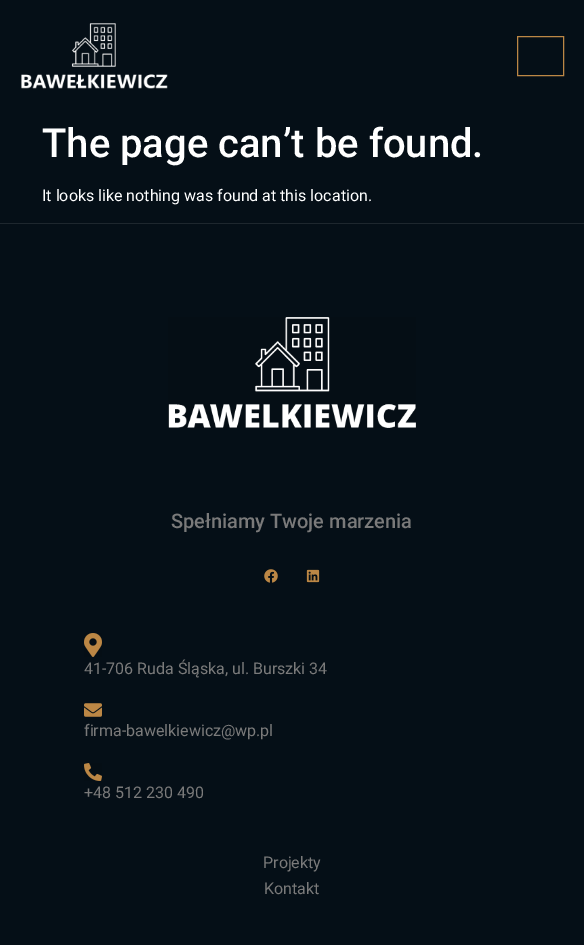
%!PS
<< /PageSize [584 945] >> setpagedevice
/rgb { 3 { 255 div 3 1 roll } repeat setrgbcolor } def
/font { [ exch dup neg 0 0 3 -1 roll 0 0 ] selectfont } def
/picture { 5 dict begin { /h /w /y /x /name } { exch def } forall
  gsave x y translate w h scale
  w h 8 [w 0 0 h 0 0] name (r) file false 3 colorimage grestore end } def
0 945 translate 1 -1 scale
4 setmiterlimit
5 15 23 rgb
0 0 584 945 rectfill
(img/1.rgb) 21 23 147 66 picture
188 135 69 rgb
517.5 36.5 46 39 rectstroke
30 39 46 rgb
0 223 584 1 rectfill
(img/2.rgb) 168 317 248 111 picture
(img/3.rgb) 264 569 14 14 picture
(img/4.rgb) 306 569 14 14 picture
(img/5.rgb) 84 633 18 24 picture
(img/6.rgb) 84 703 18 14 picture
(img/7.rgb) 84 763 18 18 picture
/Roboto-Medium 40 font
255 255 255 rgb
42 157 moveto (The page can’t be found.) show
/Roboto-Regular 16 font
42 201 moveto (It looks like nothing was found at this location.) show
/Roboto-Medium 20 font
122 122 122 rgb
171 528 moveto (Spełniamy Twoje marzenia) show
/Roboto-Regular 16 font
[
  [(41-706 Ruda Śląska, ul. Burszki 34) 84 674]
  [(firma-bawelkiewicz@wp.pl) 84 736]
  [(+48 512 230 490) 84 798]
  [(Projekty) 263 868]
  [(Kontakt) 264 894]
] { aload pop moveto show } forall
showpage
